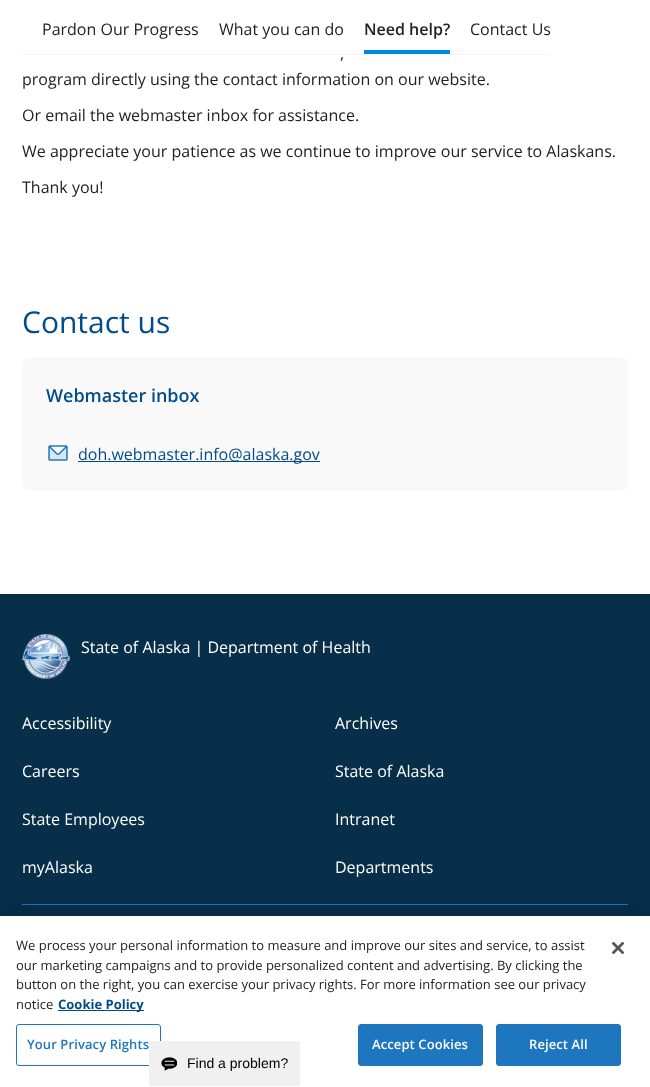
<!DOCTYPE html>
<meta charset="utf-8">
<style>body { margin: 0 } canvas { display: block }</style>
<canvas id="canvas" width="650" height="1087"></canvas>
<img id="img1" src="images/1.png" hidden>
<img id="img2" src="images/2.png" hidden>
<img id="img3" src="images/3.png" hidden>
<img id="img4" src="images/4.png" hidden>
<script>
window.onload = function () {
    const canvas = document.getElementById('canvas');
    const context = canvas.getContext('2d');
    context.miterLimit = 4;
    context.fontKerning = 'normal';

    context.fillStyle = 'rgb(255, 255, 255)';
    context.fillRect(0, 0, 650, 1087);
    context.fillStyle = 'rgb(245, 245, 245)';
    context.fillRect(22, 54, 529, 1);
    context.fillStyle = 'rgb(0, 137, 227)';
    context.fillRect(364, 50, 86, 4);
    context.fillStyle = 'rgb(249, 249, 249)';
    context.beginPath();
    context.roundRect(22, 357, 606, 134, 8);
    context.fill();
    context.drawImage(document.getElementById('img1'), 48, 445, 20, 16);
    context.fillStyle = 'rgb(1, 76, 139)';
    context.fillRect(78, 461, 242, 1);
    context.fillStyle = 'rgb(7, 47, 73)';
    context.fillRect(0, 594, 650, 322);
    context.drawImage(document.getElementById('img2'), 22, 634, 48, 45);
    context.fillStyle = 'rgb(30, 118, 191)';
    context.fillRect(22, 904, 606, 1);
    context.fillStyle = 'rgba(0, 0, 0, 0.2)';
    context.filter = 'blur(9px)';
    context.beginPath();
    context.rect(0, 916, 650, 171);
    context.fill();
    context.filter = 'none';
    context.fillStyle = 'rgb(255, 255, 255)';
    context.fillRect(0, 916, 650, 171);
    context.fillStyle = 'rgb(1, 76, 139)';
    context.fillRect(58, 1010, 86, 1);
    context.beginPath();
    context.roundRect(16.5, 1024.5, 144, 41, 2.5);
    context.strokeStyle = 'rgb(30, 118, 191)';
    context.stroke();
    context.fillStyle = 'rgb(30, 118, 191)';
    context.beginPath();
    context.roundRect(358.5, 1024.5, 124, 41, 2.5);
    context.fill();
    context.stroke();
    context.beginPath();
    context.roundRect(496.5, 1024.5, 124, 41, 2.5);
    context.fill();
    context.stroke();
    context.drawImage(document.getElementById('img3'), 612, 942, 12, 12);
    context.font = '16px Open Sans';
    context.fillStyle = 'rgb(34, 34, 34)';
    context.fillText('Pardon Our Progress', 42, 35);
    context.fillText('What you can do', 219, 35);
    context.font = '600 16px Open Sans';
    context.fillText('Need help?', 364, 35);
    context.font = '16px Open Sans';
    context.fillText('Contact Us', 470, 35);
    context.fillText(',', 340, 59);
    context.fillText('program directly using the contact information on our website.', 22, 85);
    context.fillText('Or email the webmaster inbox for assistance.', 22, 121);
    context.fillText('We appreciate your patience as we continue to improve our service to Alaskans.', 22, 157);
    context.fillText('Thank you!', 22, 193);
    context.font = '30px Open Sans';
    context.fillStyle = 'rgb(1, 76, 139)';
    context.fillText('Contact us', 22, 333);
    context.font = '600 18px Open Sans';
    context.fillText('Webmaster inbox', 46, 402);
    context.font = '16px Open Sans';
    context.fillText('doh.webmaster.info@alaska.gov', 78, 460);
    context.fillStyle = 'rgb(255, 255, 255)';
    context.fillText('State of Alaska | Department of Health', 81, 653);
    context.fillText('Accessibility', 22, 729);
    context.fillText('Archives', 335, 729);
    context.fillText('Careers', 22, 777);
    context.fillText('State of Alaska', 335, 777);
    context.fillText('State Employees', 22, 825);
    context.fillText('Intranet', 335, 825);
    context.fillText('myAlaska', 22, 873);
    context.fillText('Departments', 335, 873);
    context.font = '13px Open Sans';
    context.fillStyle = 'rgb(34, 34, 34)';
    context.fillText('We process your personal information to measure and improve our sites and service, to assist', 16, 950);
    context.fillText('our marketing campaigns and to provide personalized content and advertising. By clicking the', 16, 970);
    context.fillText('button on the right, you can exercise your privacy rights. For more information see our privacy', 16, 989);
    context.fillText('notice', 16, 1009);
    context.font = 'bold 13px Open Sans';
    context.fillStyle = 'rgb(1, 76, 139)';
    context.fillText('Cookie Policy', 58, 1009);
    context.letterSpacing = '0.1px';
    context.font = '600 13px Open Sans';
    context.fillStyle = 'rgb(30, 118, 191)';
    context.fillText('Your Privacy Rights', 27, 1049);
    context.fillStyle = 'rgb(255, 255, 255)';
    context.fillText('Accept Cookies', 372, 1049);
    context.fillText('Reject All', 529, 1049);
    context.fillStyle = 'rgb(240, 240, 240)';
    context.fillRect(149, 1041, 151, 45);
    context.drawImage(document.getElementById('img4'), 161, 1057, 16, 14);
    context.letterSpacing = '0px';
    context.font = '14px Liberation Sans';
    context.fillStyle = 'rgb(0, 0, 0)';
    context.fillText('Find a problem?', 187, 1068);
};
</script>
